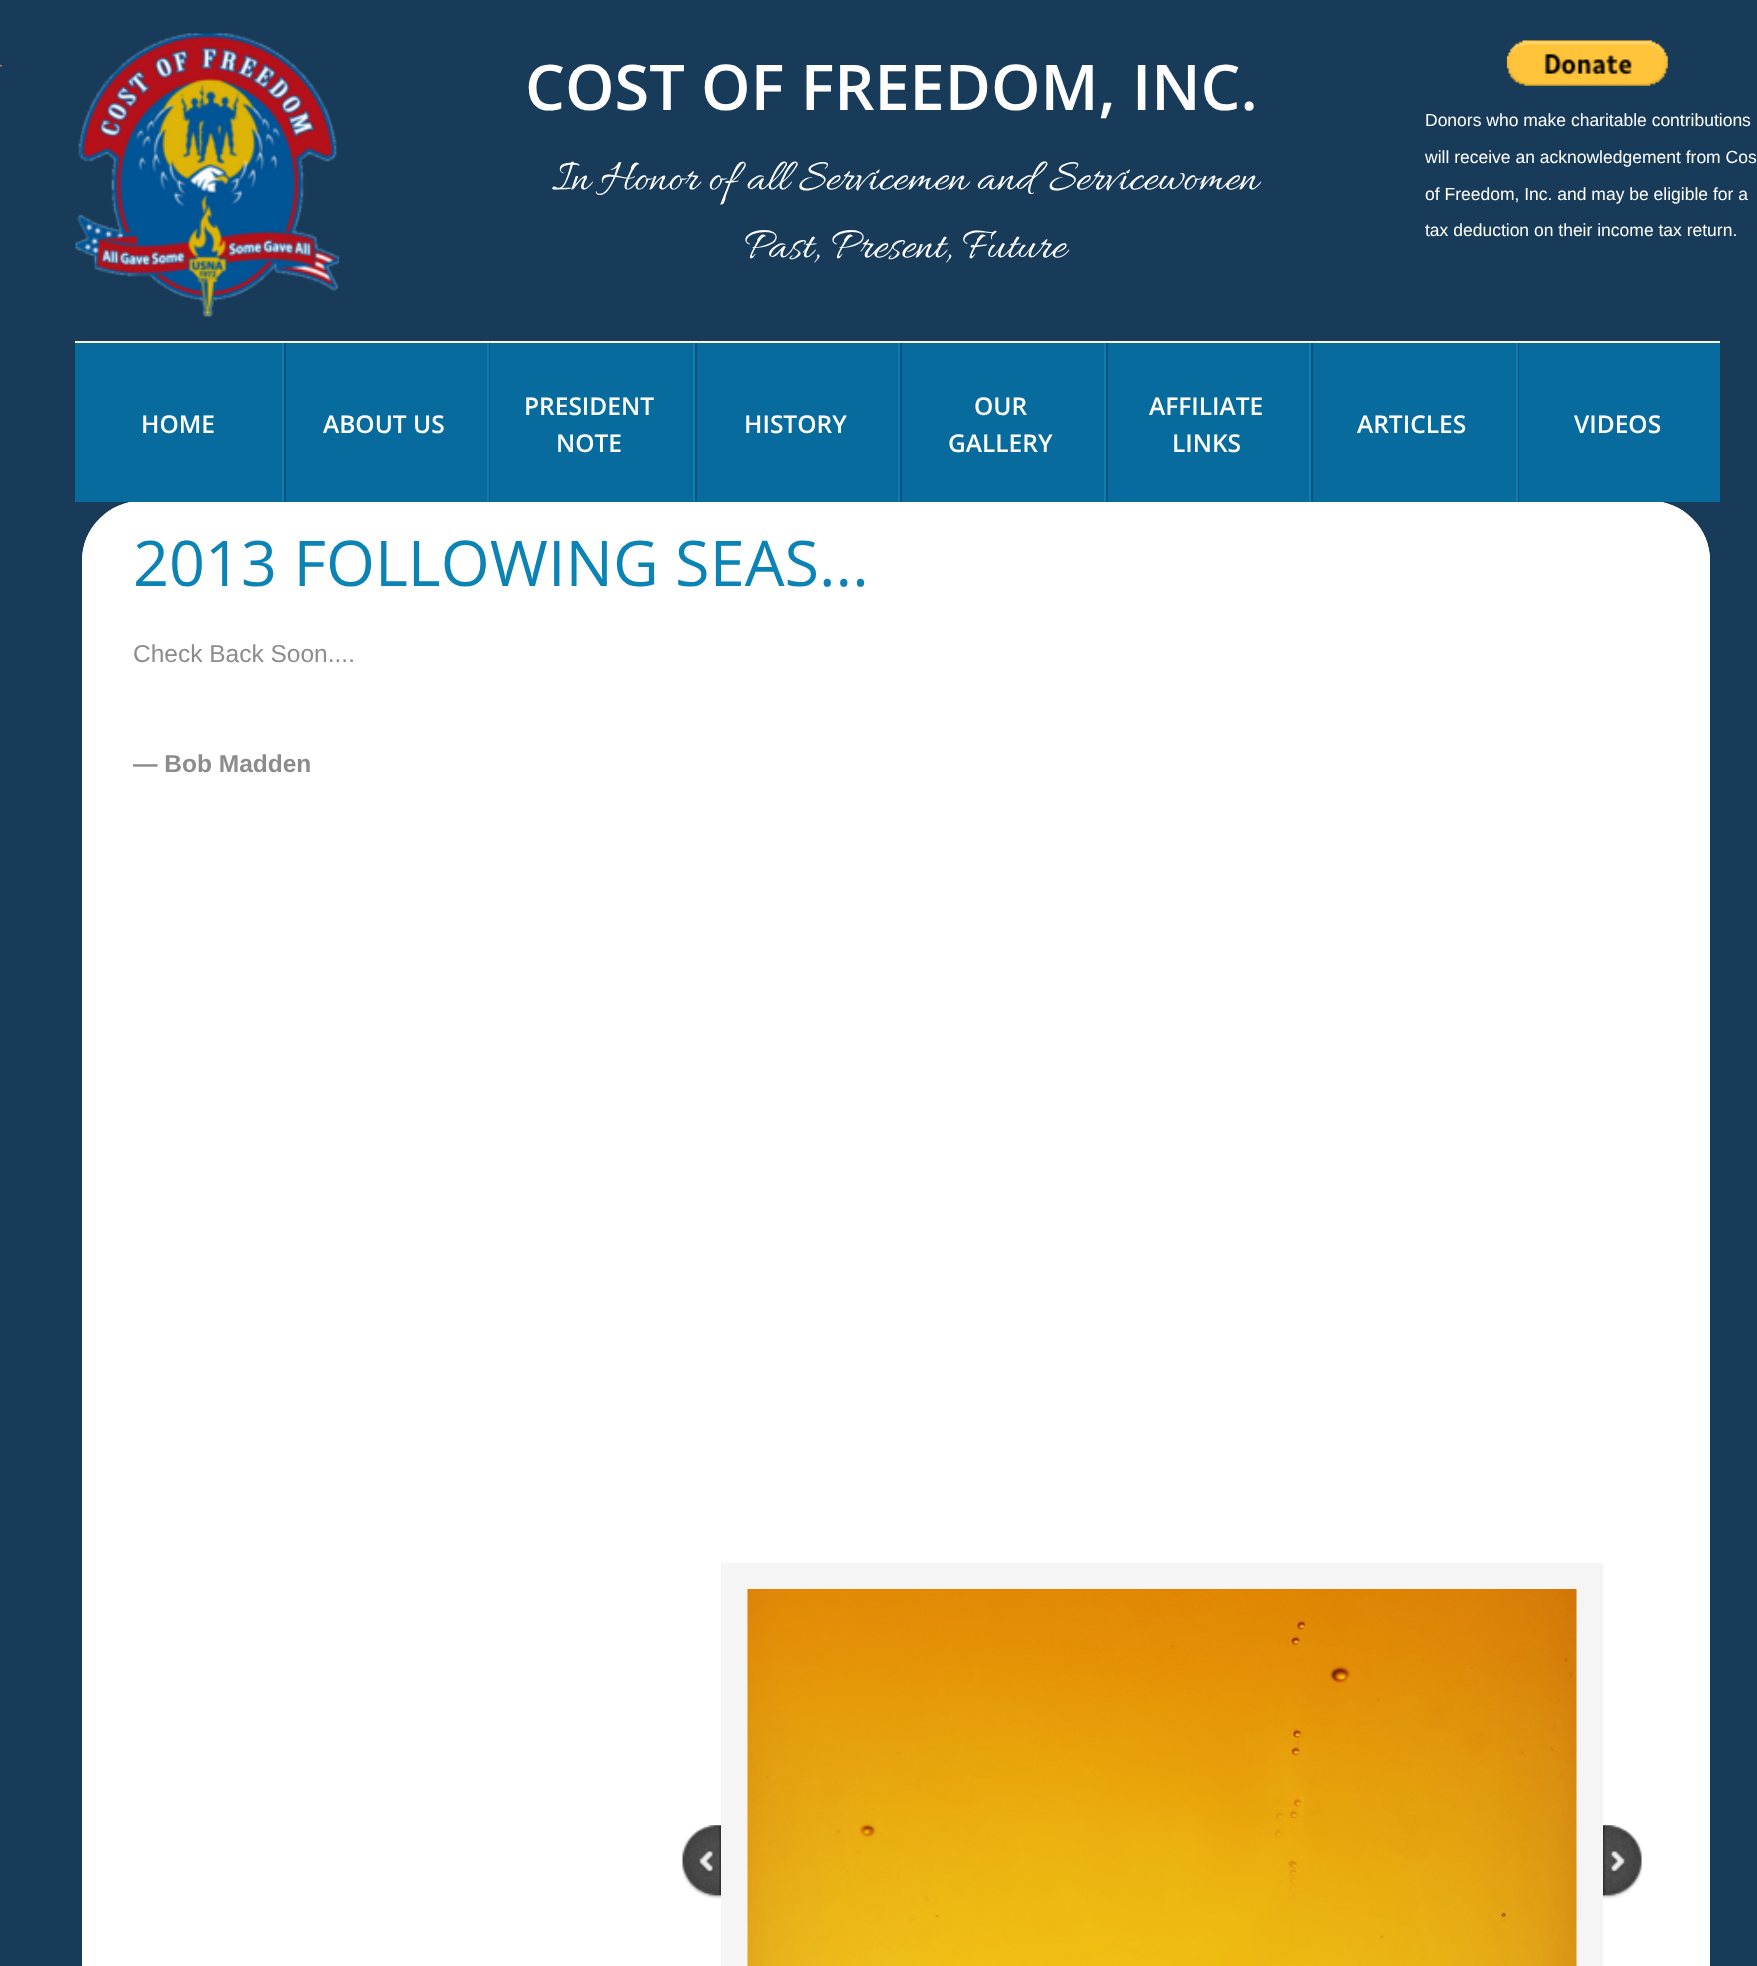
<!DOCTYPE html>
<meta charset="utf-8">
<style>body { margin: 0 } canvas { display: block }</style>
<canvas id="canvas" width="1757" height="1966"></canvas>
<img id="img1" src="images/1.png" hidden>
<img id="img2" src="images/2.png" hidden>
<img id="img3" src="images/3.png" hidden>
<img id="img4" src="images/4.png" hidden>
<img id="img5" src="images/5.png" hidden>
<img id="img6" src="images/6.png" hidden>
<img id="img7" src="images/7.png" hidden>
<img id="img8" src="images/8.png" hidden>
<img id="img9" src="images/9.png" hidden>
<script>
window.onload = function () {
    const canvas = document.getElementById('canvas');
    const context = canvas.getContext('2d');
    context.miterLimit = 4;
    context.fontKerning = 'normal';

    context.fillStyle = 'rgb(23, 59, 89)';
    context.fillRect(0, 0, 1757, 1966);
    context.drawImage(document.getElementById('img1'), 0, 64, 2, 3);
    context.drawImage(document.getElementById('img2'), 75, 33, 265, 284);
    context.drawImage(document.getElementById('img3'), 1506, 40, 162, 46);
    context.drawImage(document.getElementById('img4'), 0, 64, 2, 3);
    context.drawImage(document.getElementById('img5'), 0, 64, 2, 3);
    context.drawImage(document.getElementById('img6'), 0, 64, 2, 3);
    context.fillStyle = 'rgb(255, 255, 255)';
    context.beginPath();
    context.moveTo(142, 501);
    context.lineTo(1650, 501);
    context.bezierCurveTo(1683, 501, 1710, 528, 1710, 561);
    context.lineTo(1710, 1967);
    context.lineTo(82, 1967);
    context.lineTo(82, 561);
    context.bezierCurveTo(82, 528, 109, 501, 142, 501);
    context.closePath();
    context.fill();
    context.beginPath();
    context.roundRect(83, 502, 1626, 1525, 59);
    context.strokeStyle = 'rgb(255, 255, 255)';
    context.lineWidth = 2;
    context.stroke();
    context.fillStyle = 'rgb(7, 108, 157)';
    context.fillRect(75, 343, 1645, 159);
    context.fillStyle = 'rgb(251, 242, 208)';
    context.fillRect(75, 341, 1645, 2);
    context.fillStyle = 'rgb(3, 79, 127)';
    context.fillRect(284, 343, 2, 159);
    context.fillStyle = 'rgb(10, 126, 174)';
    context.fillRect(282, 343, 2, 159);
    context.fillStyle = 'rgb(3, 79, 127)';
    context.fillRect(489, 343, 1, 159);
    context.fillStyle = 'rgb(10, 126, 174)';
    context.fillRect(487, 343, 2, 159);
    context.fillStyle = 'rgb(3, 79, 127)';
    context.fillRect(695, 343, 2, 159);
    context.fillStyle = 'rgb(10, 126, 174)';
    context.fillRect(693, 343, 2, 159);
    context.fillStyle = 'rgb(3, 79, 127)';
    context.fillRect(900, 343, 2, 159);
    context.fillStyle = 'rgb(10, 126, 174)';
    context.fillRect(898, 343, 2, 159);
    context.fillStyle = 'rgb(3, 79, 127)';
    context.fillRect(1106, 343, 2, 159);
    context.fillStyle = 'rgb(10, 126, 174)';
    context.fillRect(1104, 343, 2, 159);
    context.fillStyle = 'rgb(3, 79, 127)';
    context.fillRect(1311, 343, 2, 159);
    context.fillStyle = 'rgb(10, 126, 174)';
    context.fillRect(1309, 343, 2, 159);
    context.fillStyle = 'rgb(3, 79, 127)';
    context.fillRect(1518, 343, 1, 159);
    context.fillStyle = 'rgb(10, 126, 174)';
    context.fillRect(1516, 343, 2, 159);
    context.drawImage(document.getElementById('img7'), 682, 1825, 39, 74);
    context.strokeStyle = 'rgb(245, 245, 245)';
    context.lineWidth = 26;
    context.strokeRect(734, 1576, 856, 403);
    context.drawImage(document.getElementById('img8'), 747, 1589, 830, 377);
    context.drawImage(document.getElementById('img9'), 1603, 1825, 39, 74);
    context.font = '600 63px Open Sans';
    context.fillStyle = 'rgb(255, 255, 255)';
    context.fillText('COST OF FREEDOM, INC.', 525, 110);
    context.font = '45.5px Allura';
    context.fillText('In Honor of all Servicemen and Servicewomen', 552, 189);
    context.fillText('Past, Present, Future', 744, 257);
    context.font = '17.5px Liberation Sans';
    context.fillText('Donors who make charitable contributions', 1425, 126);
    context.fillText('will receive an acknowledgement from Cos', 1425, 163);
    context.fillText('of Freedom, Inc. and may be eligible for a', 1425, 200);
    context.fillText('tax deduction on their income tax return.', 1425, 236);
    context.font = '600 24.5px Open Sans';
    context.fillText('HOME', 141, 433);
    context.fillText('ABOUT US', 323, 433);
    context.fillText('PRESIDENT', 524, 415);
    context.fillText('NOTE', 556, 452);
    context.fillText('HISTORY', 744, 433);
    context.fillText('OUR', 974, 415);
    context.fillText('GALLERY', 948, 452);
    context.fillText('AFFILIATE', 1149, 415);
    context.fillText('LINKS', 1172, 452);
    context.fillText('ARTICLES', 1357, 433);
    context.fillText('VIDEOS', 1574, 433);
    context.font = '63px Open Sans';
    context.fillStyle = 'rgb(11, 132, 181)';
    context.fillText('2013 FOLLOWING SEAS...', 133, 586);
    context.font = '24.5px Liberation Sans';
    context.fillStyle = 'rgb(140, 140, 140)';
    context.fillText('Check Back Soon....', 133, 662);
    context.font = 'bold 24.5px Liberation Sans';
    context.fillText('— Bob Madden', 133, 772);
};
</script>
